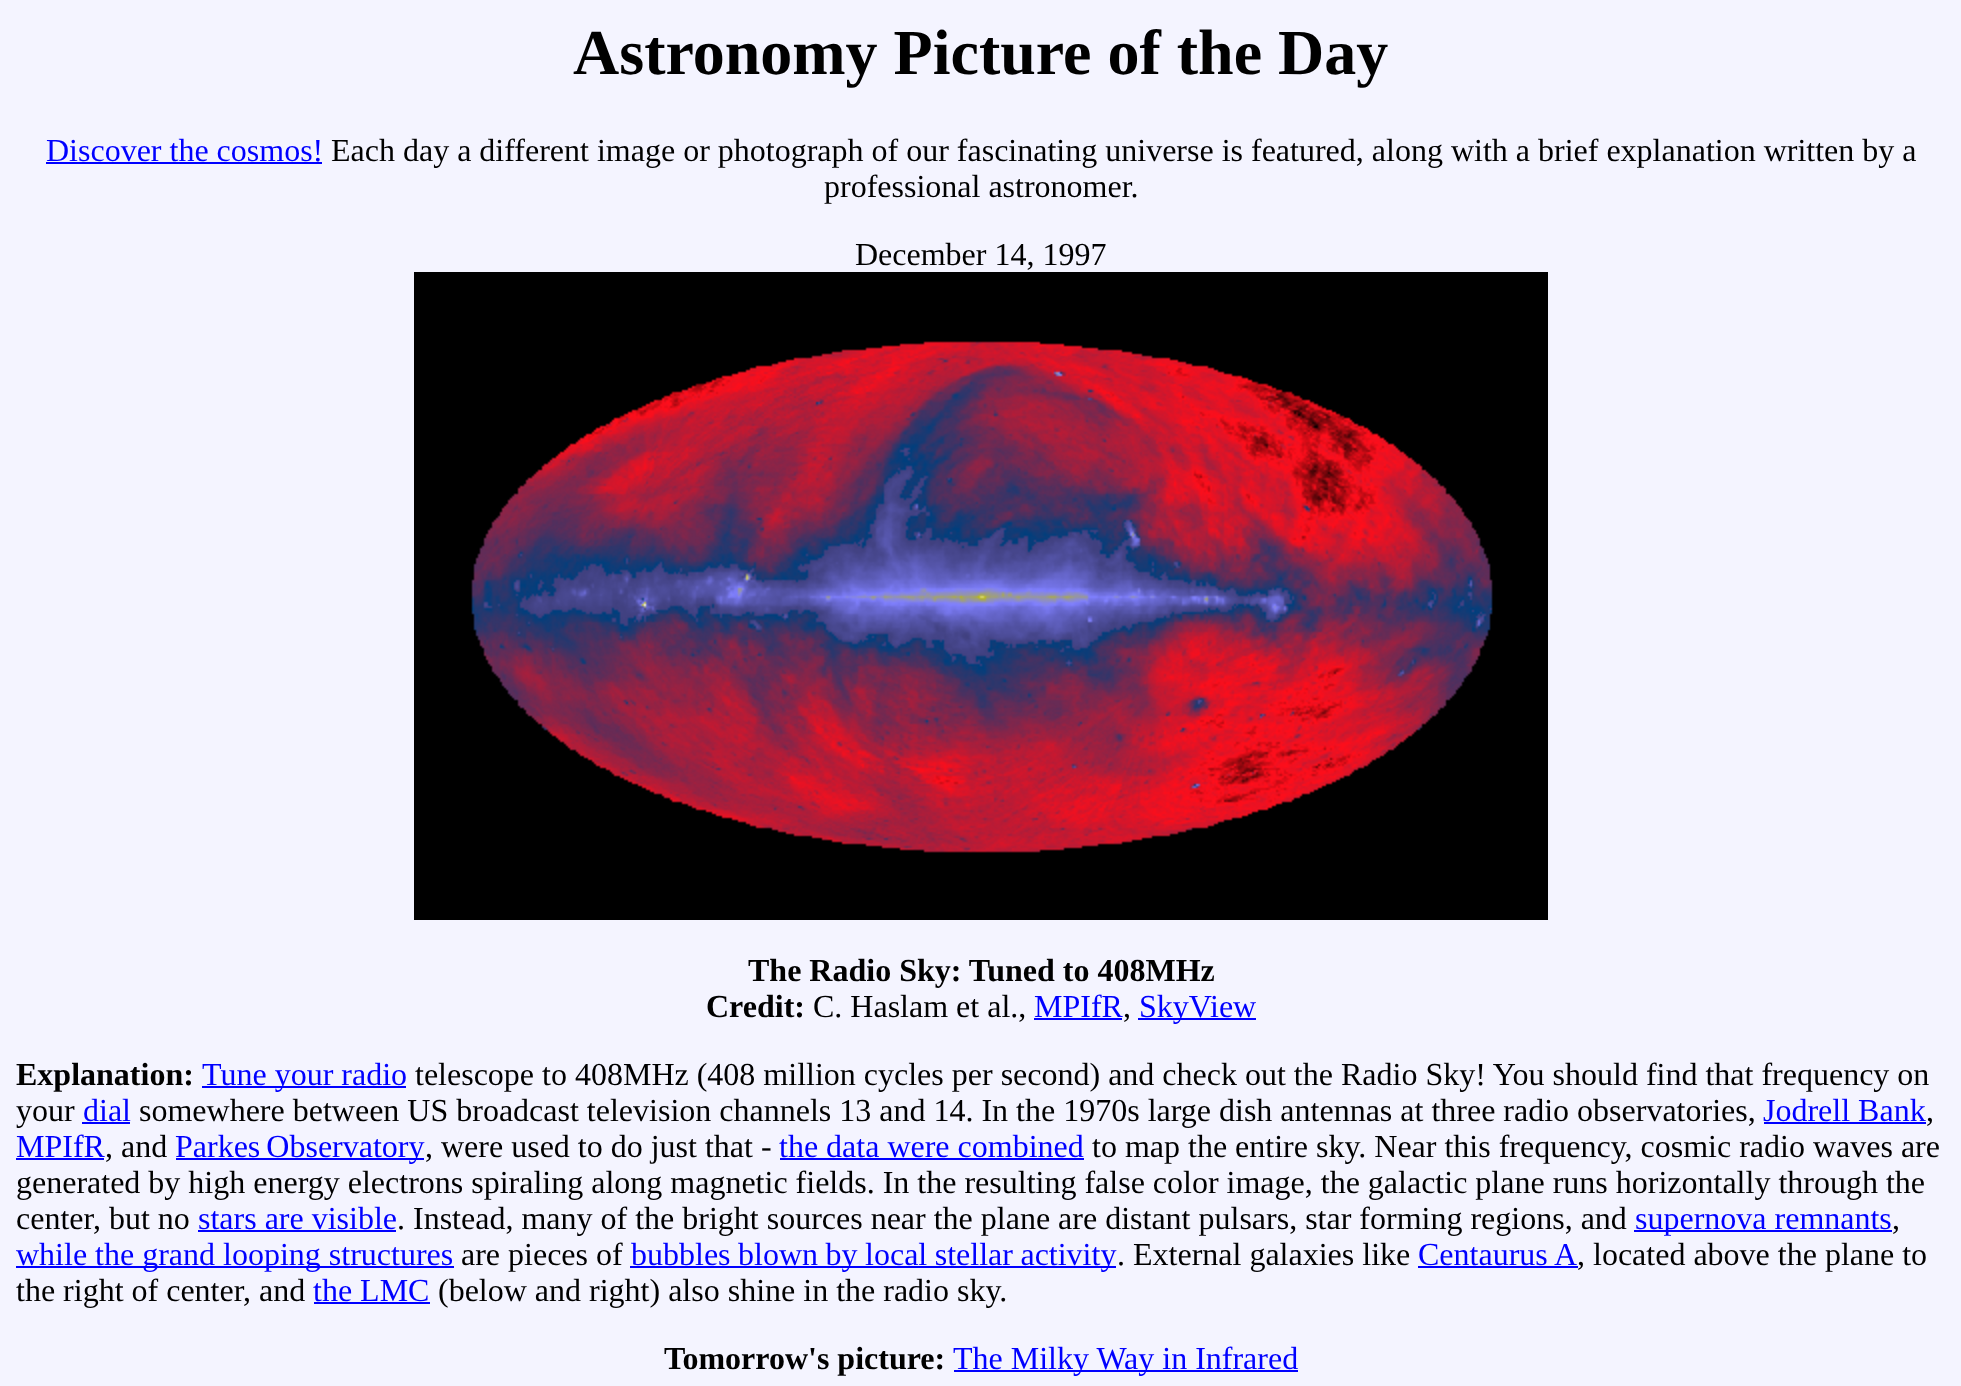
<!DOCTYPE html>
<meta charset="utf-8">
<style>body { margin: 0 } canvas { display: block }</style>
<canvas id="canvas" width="1961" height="1386"></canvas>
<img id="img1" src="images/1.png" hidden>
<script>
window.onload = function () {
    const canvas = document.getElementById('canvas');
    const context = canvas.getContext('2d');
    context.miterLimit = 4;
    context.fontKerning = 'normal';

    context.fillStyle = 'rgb(244, 244, 255)';
    context.fillRect(0, 0, 1961, 1386);
    context.fillStyle = 'rgb(0, 0, 255)';
    context.fillRect(46, 162, 276, 2);
    context.drawImage(document.getElementById('img1'), 414, 272, 1134, 648);
    context.fillRect(1034, 1018, 88, 2);
    context.fillRect(1138, 1018, 118, 2);
    context.fillRect(202, 1086, 204, 2);
    context.fillRect(82, 1122, 48, 2);
    context.fillRect(1764, 1122, 162, 2);
    context.fillRect(16, 1158, 88, 2);
    context.fillRect(176, 1158, 248, 2);
    context.fillRect(780, 1158, 304, 2);
    context.fillRect(198, 1230, 198, 2);
    context.fillRect(1634, 1230, 258, 2);
    context.fillRect(16, 1266, 438, 2);
    context.fillRect(630, 1266, 486, 2);
    context.fillRect(1418, 1266, 160, 2);
    context.fillRect(314, 1302, 116, 2);
    context.fillRect(954, 1370, 344, 2);
    context.font = 'bold 64px Liberation Serif';
    context.fillStyle = 'rgb(0, 0, 0)';
    context.fillText('Astronomy Picture of the Day', 573, 74);
    context.font = '32px Liberation Serif';
    context.fillStyle = 'rgb(0, 0, 255)';
    context.fillText('Discover the cosmos!', 46, 161);
    context.fillStyle = 'rgb(0, 0, 0)';
    context.fillText('Each day a different image or photograph of our fascinating universe is featured, along with a brief explanation written by a', 331, 161);
    context.fillText('professional astronomer.', 824, 197);
    context.fillText('December 14, 1997', 855, 265);
    context.font = 'bold 32px Liberation Serif';
    context.fillText('The Radio Sky: Tuned to 408MHz', 748, 981);
    context.fillText('Credit:', 706, 1017);
    context.font = '32px Liberation Serif';
    context.fillText('C. Haslam et al.,', 813, 1017);
    context.fillStyle = 'rgb(0, 0, 255)';
    context.fillText('MPIfR', 1034, 1017);
    context.fillStyle = 'rgb(0, 0, 0)';
    context.fillText(',', 1123, 1017);
    context.fillStyle = 'rgb(0, 0, 255)';
    context.fillText('SkyView', 1139, 1017);
    context.font = 'bold 32px Liberation Serif';
    context.fillStyle = 'rgb(0, 0, 0)';
    context.fillText('Explanation:', 16, 1085);
    context.font = '32px Liberation Serif';
    context.fillStyle = 'rgb(0, 0, 255)';
    context.fillText('Tune your radio', 202, 1085);
    context.fillStyle = 'rgb(0, 0, 0)';
    context.fillText('telescope to 408MHz (408 million cycles per second) and check out the Radio Sky! You should find that frequency on', 415, 1085);
    context.fillText('your', 16, 1121);
    context.fillStyle = 'rgb(0, 0, 255)';
    context.fillText('dial', 83, 1121);
    context.fillStyle = 'rgb(0, 0, 0)';
    context.fillText('somewhere between US broadcast television channels 13 and 14. In the 1970s large dish antennas at three radio observatories,', 139, 1121);
    context.fillStyle = 'rgb(0, 0, 255)';
    context.fillText('Jodrell Bank', 1763, 1121);
    context.fillStyle = 'rgb(0, 0, 0)';
    context.fillText(',', 1926, 1121);
    context.fillStyle = 'rgb(0, 0, 255)';
    context.fillText('MPIfR', 16, 1157);
    context.fillStyle = 'rgb(0, 0, 0)';
    context.fillText(', and', 105, 1157);
    context.wordSpacing = '-2px';
    context.fillStyle = 'rgb(0, 0, 255)';
    context.fillText('Parkes Observatory', 175, 1157);
    context.wordSpacing = '0px';
    context.fillStyle = 'rgb(0, 0, 0)';
    context.fillText(', were used to do just that -', 425, 1157);
    context.fillStyle = 'rgb(0, 0, 255)';
    context.fillText('the data were combined', 779, 1157);
    context.fillStyle = 'rgb(0, 0, 0)';
    context.fillText('to map the entire sky. Near this frequency, cosmic radio waves are', 1092, 1157);
    context.fillText('generated by high energy electrons spiraling along magnetic fields. In the resulting false color image, the galactic plane runs horizontally through the', 16, 1193);
    context.fillText('center, but no', 16, 1229);
    context.fillStyle = 'rgb(0, 0, 255)';
    context.fillText('stars are visible', 198, 1229);
    context.fillStyle = 'rgb(0, 0, 0)';
    context.fillText('. Instead, many of the bright sources near the plane are distant pulsars, star forming regions, and', 397, 1229);
    context.fillStyle = 'rgb(0, 0, 255)';
    context.fillText('supernova remnants', 1635, 1229);
    context.fillStyle = 'rgb(0, 0, 0)';
    context.fillText(',', 1892, 1229);
    context.fillStyle = 'rgb(0, 0, 255)';
    context.fillText('while the grand looping structures', 16, 1265);
    context.fillStyle = 'rgb(0, 0, 0)';
    context.fillText('are pieces of', 461, 1265);
    context.wordSpacing = '-0.5px';
    context.fillStyle = 'rgb(0, 0, 255)';
    context.fillText('bubbles blown by local stellar activity', 631, 1265);
    context.wordSpacing = '0px';
    context.fillStyle = 'rgb(0, 0, 0)';
    context.fillText('. External galaxies like', 1117, 1265);
    context.fillStyle = 'rgb(0, 0, 255)';
    context.fillText('Centaurus A', 1418, 1265);
    context.fillStyle = 'rgb(0, 0, 0)';
    context.fillText(', located above the plane to', 1577, 1265);
    context.fillText('the right of center, and', 16, 1301);
    context.fillStyle = 'rgb(0, 0, 255)';
    context.fillText('the LMC', 313, 1301);
    context.fillStyle = 'rgb(0, 0, 0)';
    context.fillText('(below and right) also shine in the radio sky.', 438, 1301);
    context.font = 'bold 32px Liberation Serif';
    context.fillText('Tomorrow\'s picture:', 664, 1369);
    context.font = '32px Liberation Serif';
    context.fillStyle = 'rgb(0, 0, 255)';
    context.fillText('The Milky Way in Infrared', 953, 1369);
};
</script>
